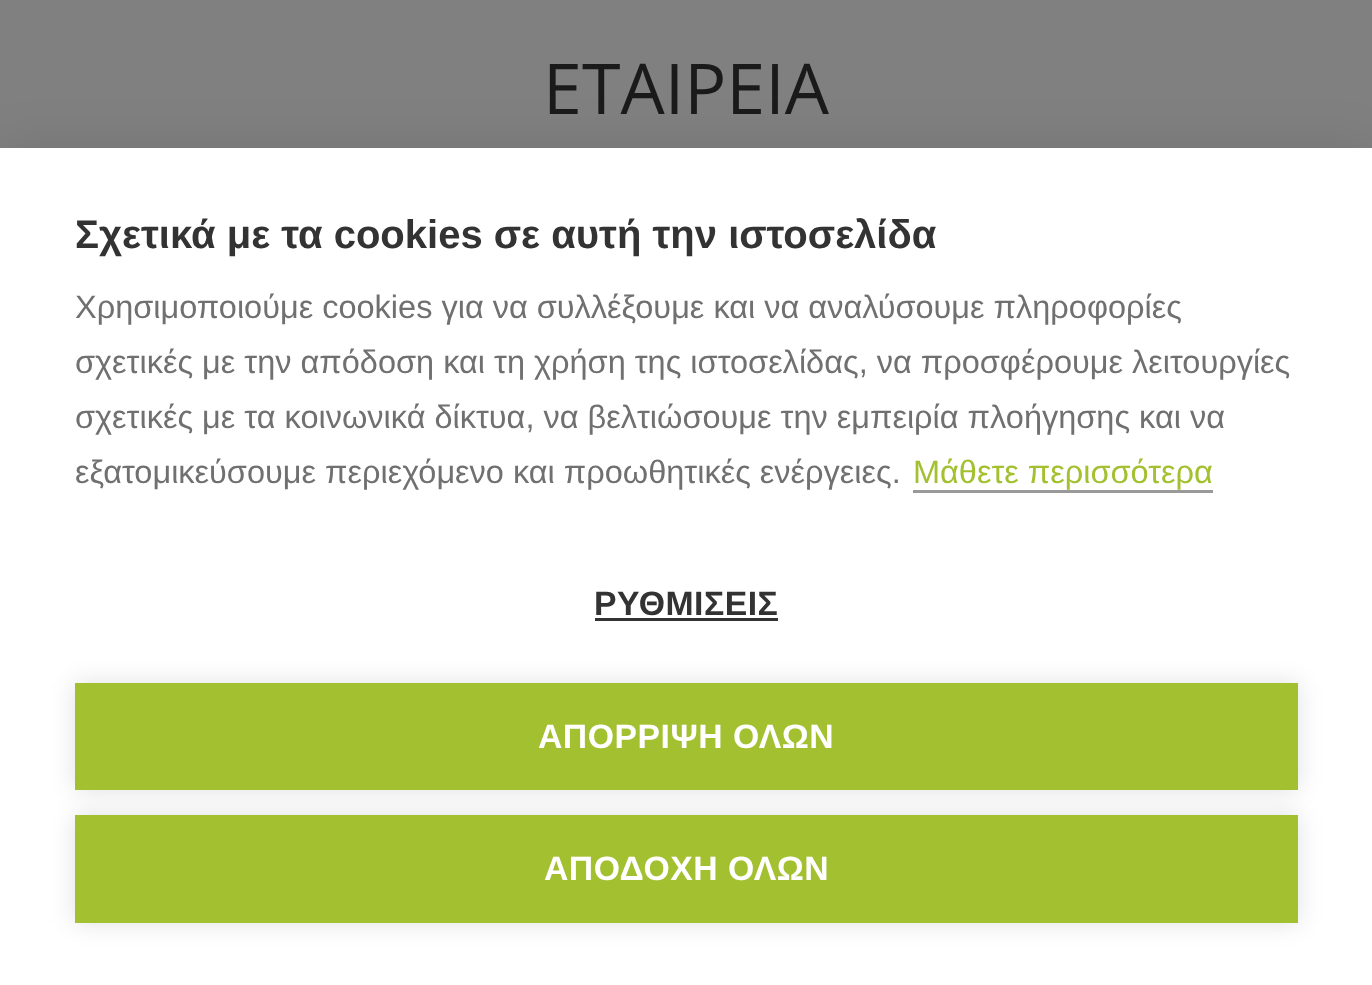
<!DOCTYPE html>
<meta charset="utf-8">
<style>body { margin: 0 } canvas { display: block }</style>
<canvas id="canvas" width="1372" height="985"></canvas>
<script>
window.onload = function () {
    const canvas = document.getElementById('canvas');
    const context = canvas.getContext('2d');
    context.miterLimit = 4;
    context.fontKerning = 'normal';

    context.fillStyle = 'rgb(128, 128, 128)';
    context.fillRect(0, 0, 1372, 985);
    context.fillStyle = 'rgba(0, 0, 0, 0.1)';
    context.filter = 'blur(25px)';
    context.beginPath();
    context.rect(0, 148, 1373, 837);
    context.fill();
    context.filter = 'none';
    context.fillStyle = 'rgb(255, 255, 255)';
    context.fillRect(0, 148, 1372, 837);
    context.fillStyle = 'rgb(153, 153, 153)';
    context.fillRect(913, 490, 300, 3);
    context.fillStyle = 'rgb(51, 51, 51)';
    context.fillRect(595, 618, 183, 3);
    context.fillStyle = 'rgba(0, 0, 0, 0.12)';
    context.filter = 'blur(12.5px)';
    context.beginPath();
    context.rect(75, 683, 1223, 107);
    context.fill();
    context.filter = 'none';
    context.fillStyle = 'rgb(162, 192, 47)';
    context.fillRect(75, 683, 1223, 107);
    context.fillStyle = 'rgba(0, 0, 0, 0.12)';
    context.filter = 'blur(12.5px)';
    context.beginPath();
    context.rect(75, 815, 1223, 108);
    context.fill();
    context.filter = 'none';
    context.fillStyle = 'rgb(162, 192, 47)';
    context.fillRect(75, 815, 1223, 108);
    context.font = '70px Open Sans';
    context.fillStyle = 'rgb(26, 26, 26)';
    context.fillText('ΕΤΑΙΡΕΙΑ', 543, 114);
    context.font = 'bold 40px Liberation Sans';
    context.fillStyle = 'rgb(51, 51, 51)';
    context.fillText('Σχετικά με τα cookies σε αυτή την ιστοσελίδα', 75, 248);
    context.font = '32.5px Liberation Sans';
    context.fillStyle = 'rgb(112, 112, 112)';
    context.fillText('Χρησιμοποιούμε cookies για να συλλέξουμε και να αναλύσουμε πληροφορίες', 75, 318);
    context.fillText('σχετικές με την απόδοση και τη χρήση της ιστοσελίδας, να προσφέρουμε λειτουργίες', 75, 373);
    context.fillText('σχετικές με τα κοινωνικά δίκτυα, να βελτιώσουμε την εμπειρία πλοήγησης και να', 75, 428);
    context.fillText('εξατομικεύσουμε περιεχόμενο και προωθητικές ενέργειες.', 75, 483);
    context.fillStyle = 'rgb(162, 192, 47)';
    context.fillText('Μάθετε περισσότερα', 913, 483);
    context.letterSpacing = '0.5px';
    context.font = 'bold 33.75px Liberation Sans';
    context.fillStyle = 'rgb(51, 51, 51)';
    context.fillText('ΡΥΘΜΙΣΕΙΣ', 594, 615);
    context.fillStyle = 'rgb(255, 255, 255)';
    context.fillText('ΑΠΟΡΡΙΨΗ ΟΛΩΝ', 538, 748);
    context.fillText('ΑΠΟΔΟΧΗ ΟΛΩΝ', 544, 880);
};
</script>
